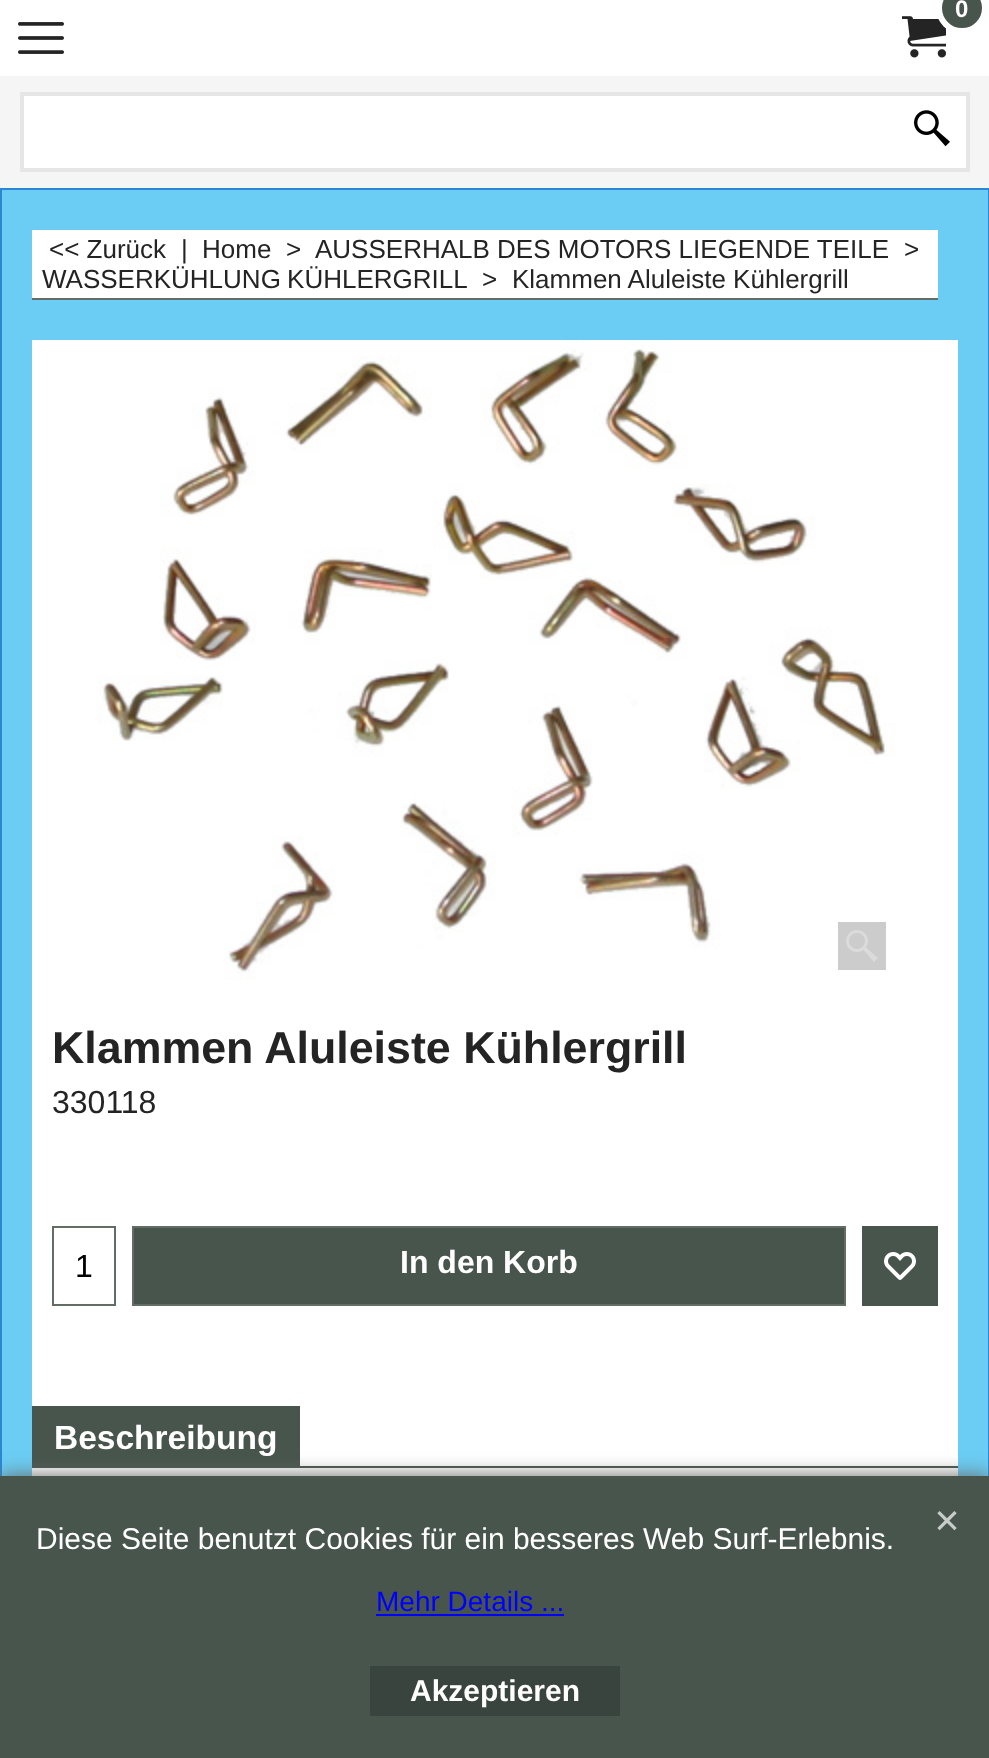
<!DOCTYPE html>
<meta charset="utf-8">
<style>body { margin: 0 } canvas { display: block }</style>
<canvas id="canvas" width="989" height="1758"></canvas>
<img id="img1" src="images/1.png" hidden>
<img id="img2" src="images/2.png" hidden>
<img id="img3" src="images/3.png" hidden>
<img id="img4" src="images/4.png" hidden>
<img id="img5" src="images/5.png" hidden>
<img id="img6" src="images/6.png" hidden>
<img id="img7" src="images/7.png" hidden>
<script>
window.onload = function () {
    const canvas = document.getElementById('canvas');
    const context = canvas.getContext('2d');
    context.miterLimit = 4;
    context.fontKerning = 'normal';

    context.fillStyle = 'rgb(43, 135, 213)';
    context.fillRect(0, 0, 989, 1758);
    context.fillStyle = 'rgb(255, 255, 255)';
    context.fillRect(0, 0, 989, 76);
    context.drawImage(document.getElementById('img1'), 902, 16, 44, 42);
    context.fillStyle = 'rgb(72, 85, 77)';
    context.beginPath();
    context.arc(962, 8, 23, 0, 2 * Math.PI);
    context.fill();
    context.strokeStyle = 'rgb(255, 255, 255)';
    context.lineWidth = 6;
    context.stroke();
    context.drawImage(document.getElementById('img2'), 18, 22, 46, 32);
    context.fillStyle = 'rgb(245, 245, 246)';
    context.fillRect(0, 76, 989, 112);
    context.fillStyle = 'rgb(255, 255, 255)';
    context.beginPath();
    context.rect(22, 94, 946, 76);
    context.fill();
    context.strokeStyle = 'rgb(230, 230, 230)';
    context.lineWidth = 4;
    context.stroke();
    context.drawImage(document.getElementById('img3'), 914, 110, 36, 37);
    context.fillStyle = 'rgb(107, 205, 244)';
    context.fillRect(2, 190, 986, 1286);
    context.fillStyle = 'rgb(255, 255, 255)';
    context.fillRect(32, 230, 906, 68);
    context.fillStyle = 'rgb(98, 109, 102)';
    context.fillRect(32, 298, 906, 2);
    context.fillStyle = 'rgb(255, 255, 255)';
    context.fillRect(32, 340, 926, 1136);
    context.drawImage(document.getElementById('img4'), 96, 340, 800, 640);
    context.fillStyle = 'rgb(204, 204, 204)';
    context.fillRect(838, 922, 48, 48);
    context.drawImage(document.getElementById('img5'), 846, 930, 32, 32);
    context.strokeStyle = 'rgb(98, 109, 102)';
    context.lineWidth = 2;
    context.strokeRect(53, 1227, 62, 78);
    context.fillStyle = 'rgb(72, 85, 77)';
    context.beginPath();
    context.rect(133, 1227, 712, 78);
    context.fill();
    context.stroke();
    context.fillRect(862, 1226, 76, 80);
    context.drawImage(document.getElementById('img6'), 884, 1252, 32, 28);
    context.fillRect(32, 1406, 268, 62);
    context.fillRect(300, 1466, 658, 2);
    context.fillStyle = 'rgb(102, 102, 102)';
    context.filter = 'blur(10px)';
    context.beginPath();
    context.rect(0, 1476, 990, 282);
    context.fill();
    context.filter = 'none';
    context.fillStyle = 'rgb(72, 85, 77)';
    context.fillRect(0, 1476, 989, 282);
    context.drawImage(document.getElementById('img7'), 937, 1511, 20, 20);
    context.fillStyle = 'rgb(0, 0, 255)';
    context.fillRect(376, 1614, 188, 2);
    context.fillStyle = 'rgb(58, 68, 62)';
    context.fillRect(370, 1666, 250, 50);
    context.font = 'bold 24px Liberation Sans';
    context.fillStyle = 'rgb(255, 255, 255)';
    context.fillText('0', 955, 17);
    context.font = '26px Liberation Sans';
    context.fillStyle = 'rgb(36, 36, 36)';
    context.fillText('<< Zurück', 49, 258);
    context.fillText('|', 181, 258);
    context.fillText('Home', 202, 258);
    context.fillText('>', 286, 258);
    context.fillText('AUSSERHALB DES MOTORS LIEGENDE TEILE', 315, 258);
    context.fillText('>', 904, 258);
    context.wordSpacing = '-1px';
    context.fillText('WASSERKÜHLUNG KÜHLERGRILL', 42, 288);
    context.wordSpacing = '0px';
    context.fillText('>', 482, 288);
    context.fillText('Klammen Aluleiste Kühlergrill', 512, 288);
    context.font = 'bold 44.75px Liberation Sans';
    context.fillText('Klammen Aluleiste Kühlergrill', 52, 1063);
    context.font = '32px Liberation Sans';
    context.fillText('330118', 52, 1113);
    context.fillStyle = 'rgb(0, 0, 0)';
    context.fillText('1', 75, 1277);
    context.font = 'bold 32px Liberation Sans';
    context.fillStyle = 'rgb(255, 255, 255)';
    context.fillText('In den Korb', 400, 1273);
    context.font = 'bold 33.5px Liberation Sans';
    context.fillText('Beschreibung', 54, 1449);
    context.font = '30px Liberation Sans';
    context.fillText('Diese Seite benutzt Cookies für ein besseres Web Surf-Erlebnis.', 36, 1549);
    context.font = '28px Liberation Sans';
    context.fillStyle = 'rgb(0, 0, 255)';
    context.fillText('Mehr Details ...', 376, 1611);
    context.font = 'bold 30px Liberation Sans';
    context.fillStyle = 'rgb(255, 255, 255)';
    context.fillText('Akzeptieren', 410, 1701);
};
</script>
